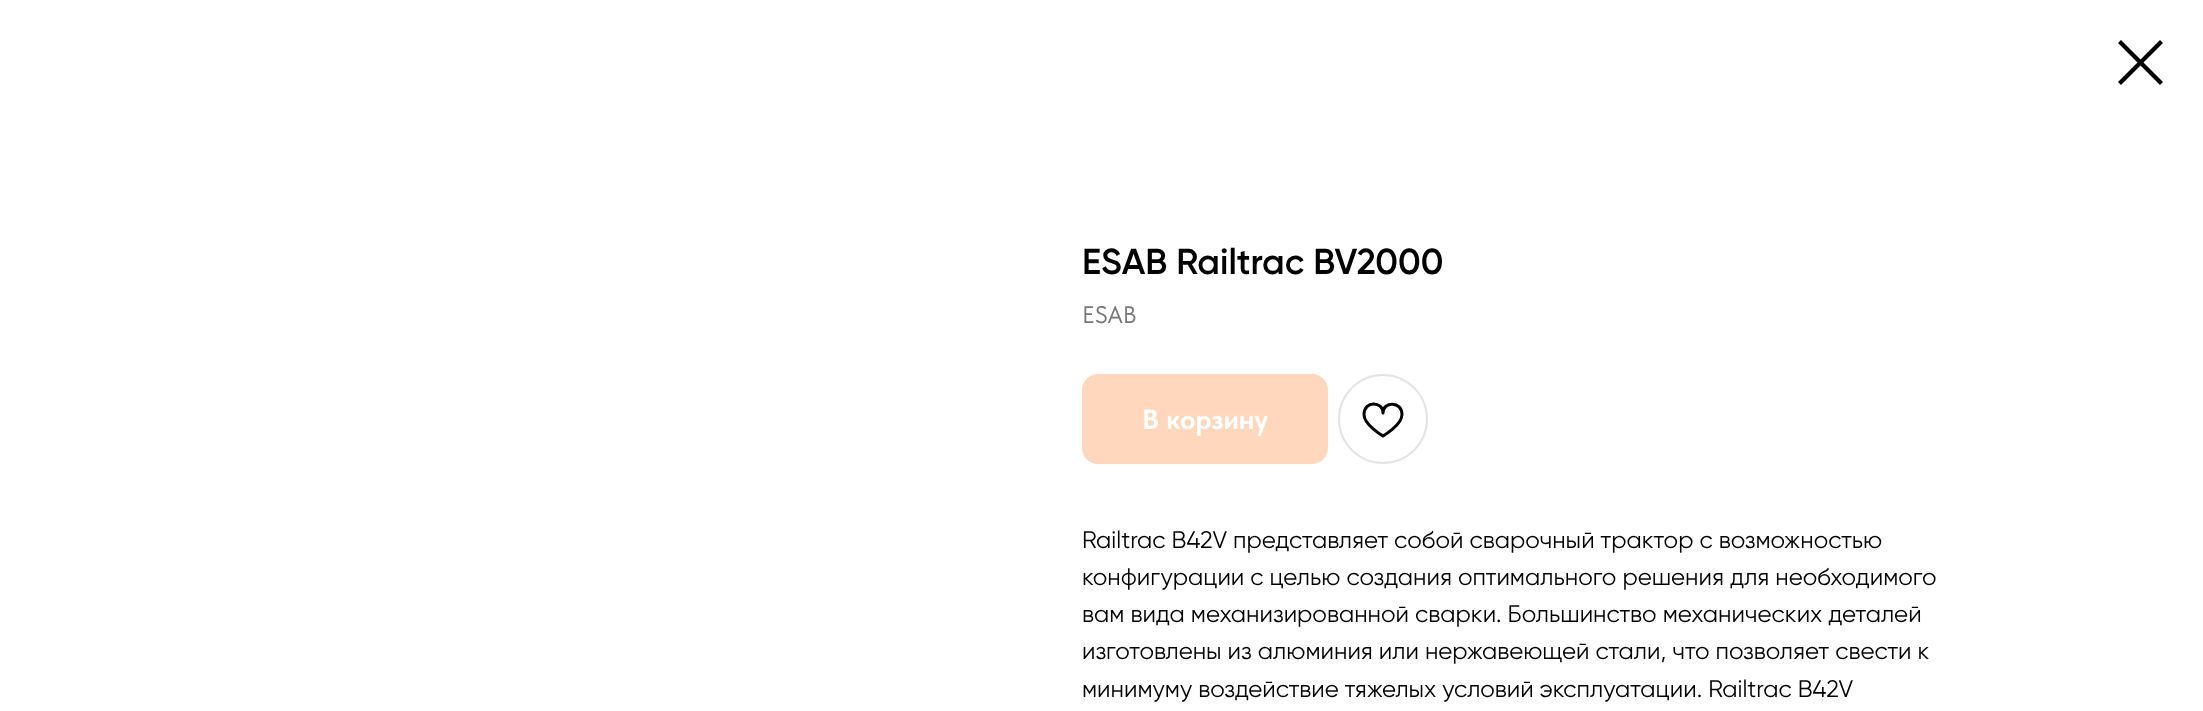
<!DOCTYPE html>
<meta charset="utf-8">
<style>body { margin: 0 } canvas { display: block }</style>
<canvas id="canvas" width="2203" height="711"></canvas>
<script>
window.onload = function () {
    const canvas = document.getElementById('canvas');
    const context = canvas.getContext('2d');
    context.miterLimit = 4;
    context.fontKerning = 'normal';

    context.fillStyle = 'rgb(255, 255, 255)';
    context.fillRect(0, 0, 2203, 711);
    context.fillStyle = 'rgb(0, 0, 0)';
    context.beginPath();
    context.moveTo(2118, 43);
    context.lineTo(2121, 40);
    context.lineTo(2163, 82);
    context.lineTo(2160, 85);
    context.closePath();
    context.fill('evenodd');
    context.beginPath();
    context.moveTo(2160, 40);
    context.lineTo(2163, 43);
    context.lineTo(2121, 85);
    context.lineTo(2118, 82);
    context.closePath();
    context.fill('evenodd');
    context.fillStyle = 'rgb(255, 215, 188)';
    context.beginPath();
    context.roundRect(1082, 374, 246, 90, 16);
    context.fill();
    context.beginPath();
    context.arc(1383, 419, 44, 0, 2 * Math.PI);
    context.strokeStyle = 'rgb(228, 228, 228)';
    context.lineWidth = 2;
    context.stroke();
    context.beginPath();
    context.moveTo(1402, 414.5);
    context.bezierCurveTo(1402, 425, 1383, 436, 1383, 436);
    context.bezierCurveTo(1383, 436, 1364, 425, 1364, 414.5);
    context.bezierCurveTo(1364, 400.5, 1383, 401, 1383, 413);
    context.bezierCurveTo(1383, 401, 1402, 401, 1402, 414.5);
    context.closePath();
    context.strokeStyle = 'rgb(0, 0, 0)';
    context.lineWidth = 3;
    context.lineJoin = 'round';
    context.stroke();
    context.font = '600 36px Gilroy';
    context.fillStyle = 'rgb(0, 0, 0)';
    context.fillText('ESAB Railtrac BV2000', 1082, 274);
    context.font = '24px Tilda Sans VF';
    context.fillStyle = 'rgb(119, 119, 119)';
    context.fillText('ESAB', 1082, 323);
    context.font = 'bold 28px Tilda Sans VF';
    context.fillStyle = 'rgb(255, 255, 255)';
    context.fillText('В корзину', 1142, 429);
    context.font = '24px Gilroy';
    context.fillStyle = 'rgb(0, 0, 0)';
    context.fillText('Railtrac B42V представляет собой сварочный трактор с возможностью', 1082, 548);
    context.fillText('конфигурации с целью создания оптимального решения для необходимого', 1082, 585);
    context.fillText('вам вида механизированной сварки. Большинство механических деталей', 1082, 622);
    context.fillText('изготовлены из алюминия или нержавеющей стали, что позволяет свести к', 1082, 659);
    context.fillText('минимуму воздействие тяжелых условий эксплуатации. Railtrac B42V', 1082, 697);
};
</script>
